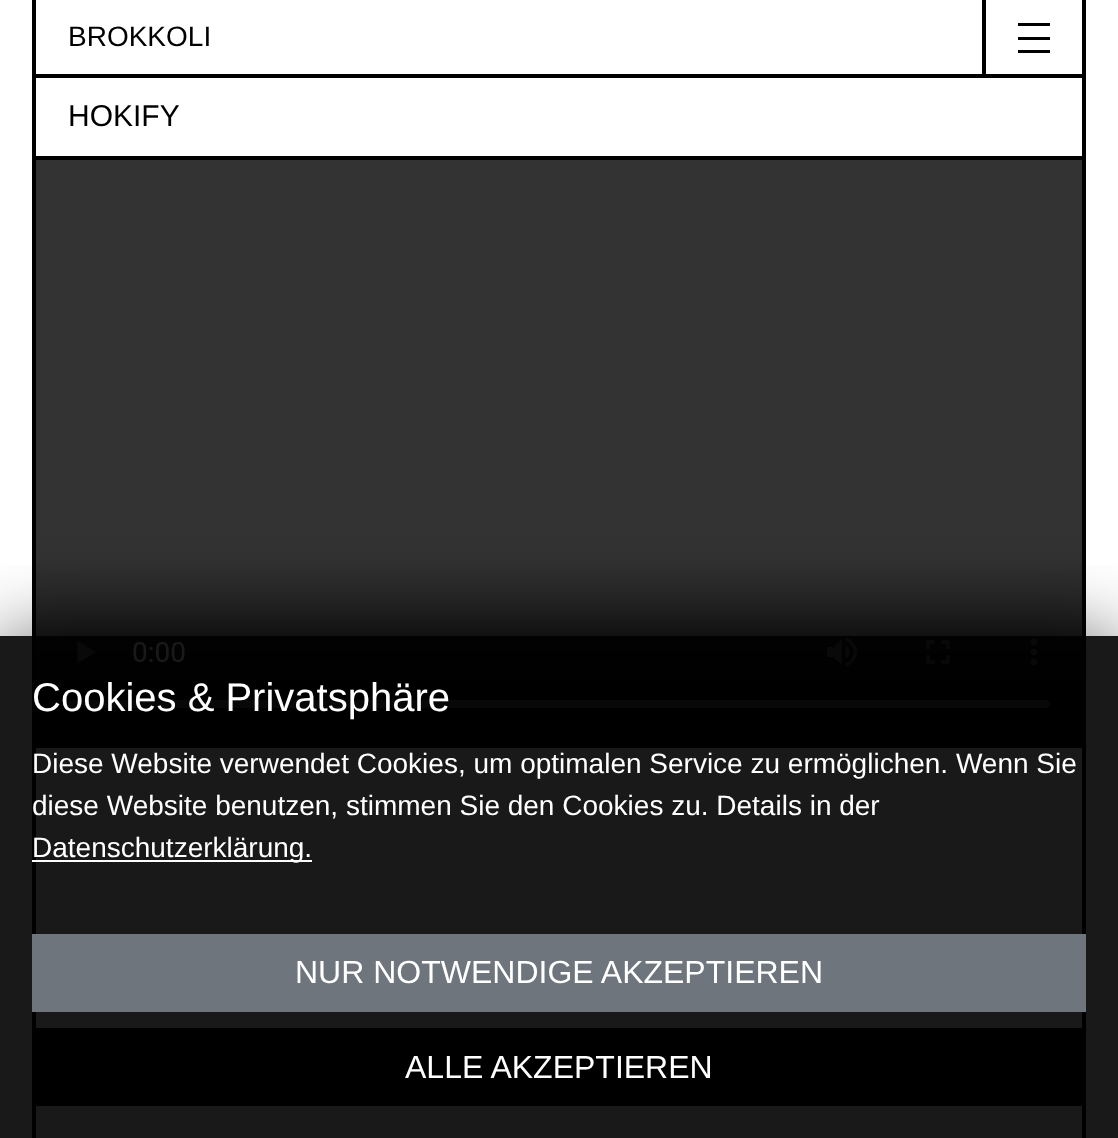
<!DOCTYPE html>
<meta charset="utf-8">
<style>body { margin: 0 } canvas { display: block }</style>
<canvas id="canvas" width="1118" height="1138"></canvas>
<img id="img1" src="images/1.png" hidden>
<script>
window.onload = function () {
    const canvas = document.getElementById('canvas');
    const context = canvas.getContext('2d');
    context.miterLimit = 4;
    context.fontKerning = 'normal';

    context.fillStyle = 'rgb(255, 255, 255)';
    context.fillRect(0, 0, 1118, 1138);
    context.fillStyle = 'rgb(0, 0, 0)';
    context.fillRect(1082, 160, 4, 978);
    context.fillRect(32, 160, 4, 978);
    context.fillRect(1082, 0, 4, 160);
    context.fillRect(32, 74, 1054, 4);
    context.fillRect(32, 0, 4, 78);
    context.fillRect(982, 0, 4, 74);
    context.fillRect(1018, 50, 32, 3);
    context.fillRect(1018, 37, 32, 3);
    context.fillRect(1018, 23, 32, 3);
    context.fillRect(32, 156, 1054, 4);
    context.fillRect(32, 78, 4, 82);
    context.drawImage(document.getElementById('img1'), 36, 160, 1046, 588);
    context.save();
    context.beginPath();
    context.rect(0, 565, 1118, 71);
    context.clip();
    context.fillStyle = 'rgba(0, 0, 0, 0.65)';
    context.filter = 'blur(40px)';
    context.beginPath();
    context.rect(0, 640, 1118, 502);
    context.fill();
    context.filter = 'none';
    context.restore();
    context.fillStyle = 'rgba(0, 0, 0, 0.9)';
    context.fillRect(0, 636, 1118, 502);
    context.fillStyle = 'rgb(255, 255, 255)';
    context.fillRect(32, 860, 280, 2);
    context.fillStyle = 'rgb(110, 117, 124)';
    context.fillRect(32, 934, 1054, 78);
    context.fillStyle = 'rgb(0, 0, 0)';
    context.fillRect(36, 1028, 1046, 78);
    context.font = '28px Liberation Sans';
    context.fillText('BROKKOLI', 68, 46);
    context.font = '30px Liberation Sans';
    context.fillText('HOKIFY', 68, 126);
    context.font = '40px Liberation Sans';
    context.fillStyle = 'rgb(255, 255, 255)';
    context.fillText('Cookies & Privatsphäre', 32, 711);
    context.font = '28px Liberation Sans';
    context.fillText('Diese Website verwendet Cookies, um optimalen Service zu ermöglichen. Wenn Sie', 32, 773);
    context.fillText('diese Website benutzen, stimmen Sie den Cookies zu. Details in der', 32, 815);
    context.fillText('Datenschutzerklärung.', 32, 857);
    context.font = '32px Liberation Sans';
    context.fillText('NUR NOTWENDIGE AKZEPTIEREN', 295, 983);
    context.fillText('ALLE AKZEPTIEREN', 405, 1078);
};
</script>
